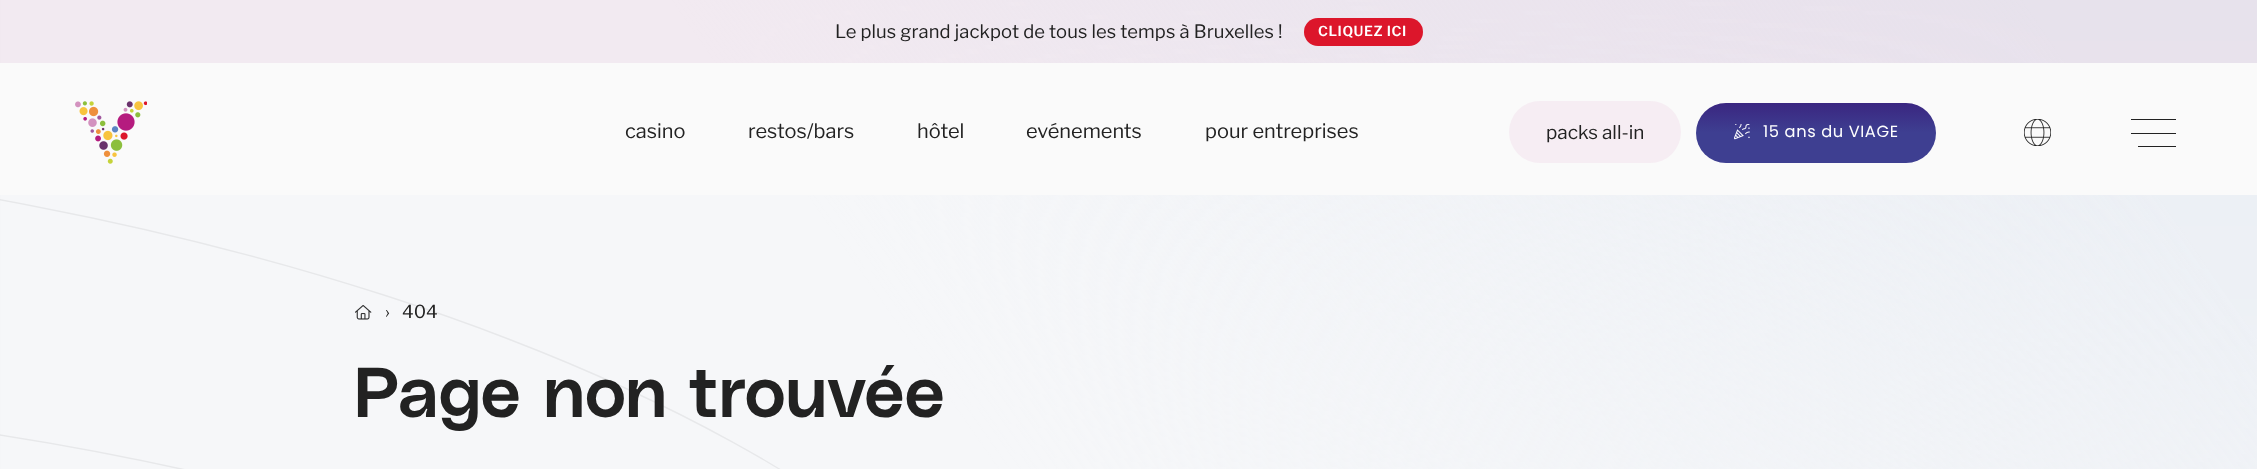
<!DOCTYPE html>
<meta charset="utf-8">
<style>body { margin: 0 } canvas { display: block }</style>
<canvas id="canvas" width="2257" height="469"></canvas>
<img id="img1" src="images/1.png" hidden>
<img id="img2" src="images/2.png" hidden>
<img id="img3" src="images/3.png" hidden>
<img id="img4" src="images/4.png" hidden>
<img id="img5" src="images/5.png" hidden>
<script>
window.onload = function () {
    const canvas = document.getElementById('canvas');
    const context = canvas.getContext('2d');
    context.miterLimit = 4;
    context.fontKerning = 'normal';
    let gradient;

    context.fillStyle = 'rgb(255, 255, 255)';
    context.fillRect(0, 0, 2257, 469);
    context.drawImage(document.getElementById('img1'), 0, 0, 2257, 469);
    context.fillStyle = 'rgba(181, 27, 127, 0.06)';
    context.fillRect(0, 0, 2257, 63);
    context.fillStyle = 'rgb(220, 22, 43)';
    context.beginPath();
    context.roundRect(1304, 18, 119, 28, 14);
    context.fill();
    context.fillStyle = 'rgb(250, 250, 250)';
    context.fillRect(0, 63, 2257, 132);
    context.drawImage(document.getElementById('img2'), 75, 101, 72, 63);
    context.fillStyle = 'rgb(246, 237, 243)';
    context.beginPath();
    context.roundRect(1509, 101, 172, 62, 31);
    context.fill();
    gradient = context.createLinearGradient(1816, 102, 1816, 163);
    gradient.addColorStop(0, 'rgb(58, 37, 128)');
    gradient.addColorStop(0.5, 'rgb(62, 63, 145)');
    context.fillStyle = gradient;
    context.beginPath();
    context.roundRect(1696, 103, 240, 60, 30);
    context.fill();
    context.drawImage(document.getElementById('img3'), 1734, 124, 16, 16);
    context.drawImage(document.getElementById('img4'), 2024, 119, 27, 27);
    context.fillStyle = 'rgb(34, 34, 34)';
    context.fillRect(2131, 119, 45, 1);
    context.fillRect(2131, 133, 45, 1);
    context.fillRect(2138, 146, 38, 1);
    context.drawImage(document.getElementById('img5'), 355, 305, 17, 15);
    context.letterSpacing = '0.1px';
    context.font = '18.4px Libre Franklin';
    context.fillText('Le plus grand jackpot de tous les temps à Bruxelles !', 835, 38);
    context.letterSpacing = '0.6px';
    context.font = '600 13.75px Libre Franklin';
    context.fillStyle = 'rgb(255, 255, 255)';
    context.fillText('CLIQUEZ ICI', 1318, 36);
    context.letterSpacing = '0px';
    context.font = '20px Libre Franklin';
    context.fillStyle = 'rgb(34, 34, 34)';
    context.fillText('casino', 625, 138);
    context.fillText('restos/bars', 748, 138);
    context.fillText('hôtel', 917, 138);
    context.fillText('evénements', 1026, 138);
    context.fillText('pour entreprises', 1205, 138);
    context.font = '19px Libre Franklin';
    context.fillText('packs all-in', 1546, 139);
    context.letterSpacing = '0.6px';
    context.font = '16.25px Poppins';
    context.fillStyle = 'rgb(255, 255, 255)';
    context.fillText('15 ans du VIAGE', 1763, 137);
    context.letterSpacing = '0px';
    context.font = '18px Libre Franklin';
    context.fillStyle = 'rgb(34, 34, 34)';
    context.fillText('›', 385, 318);
    context.fillText('404', 402, 318);
    context.letterSpacing = '0.75px';
    context.font = '600 70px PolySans';
    context.fillText('Page non trouvée', 354, 417);
};
</script>
